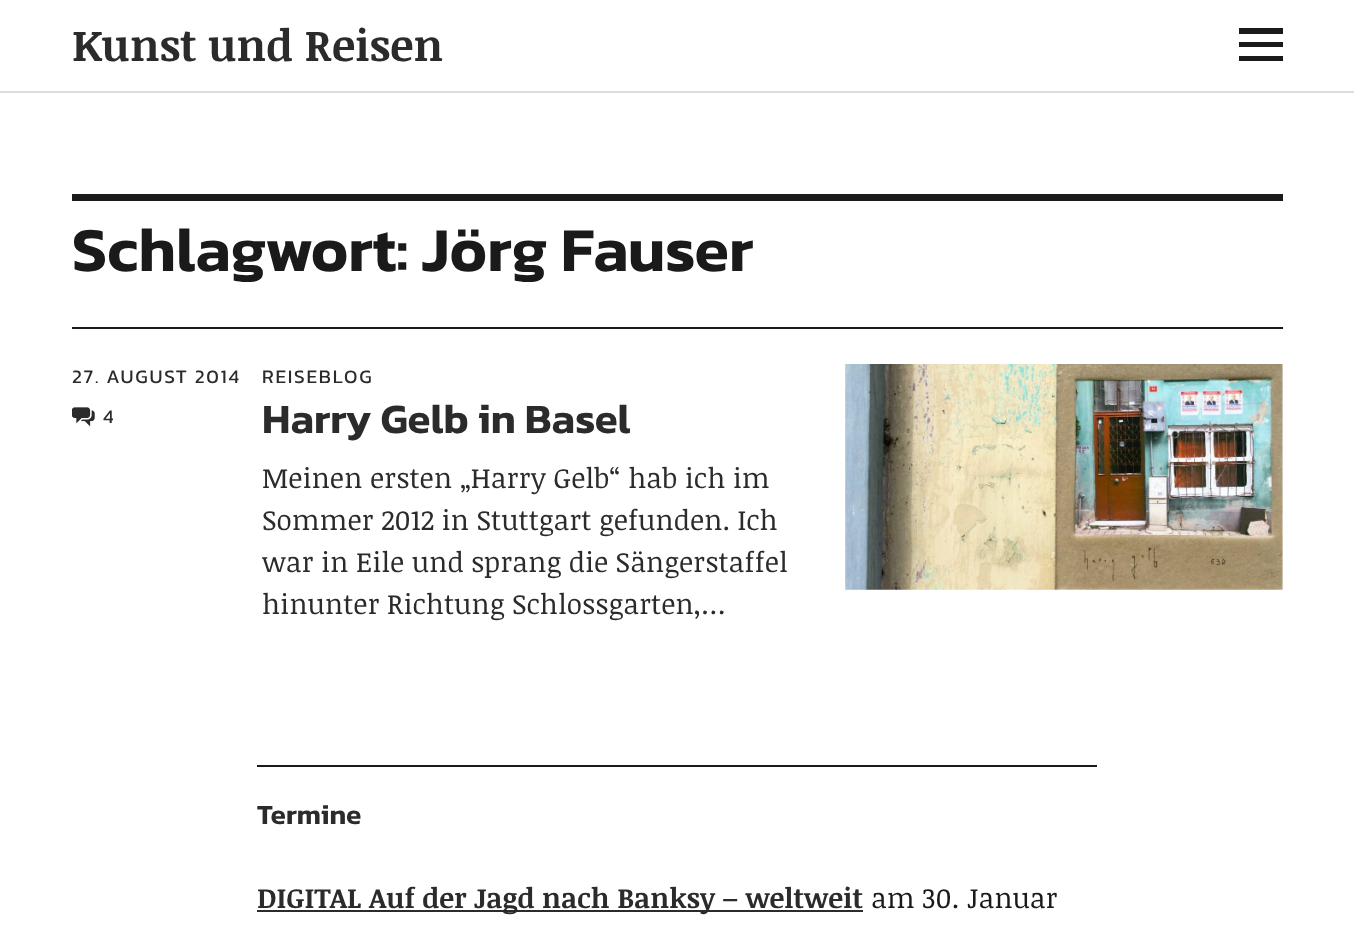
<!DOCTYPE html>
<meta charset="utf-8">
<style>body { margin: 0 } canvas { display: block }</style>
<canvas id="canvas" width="1354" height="938"></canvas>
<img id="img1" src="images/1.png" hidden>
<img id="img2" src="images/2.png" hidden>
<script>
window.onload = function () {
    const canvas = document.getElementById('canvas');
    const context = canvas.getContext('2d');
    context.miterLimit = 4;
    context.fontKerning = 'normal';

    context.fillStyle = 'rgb(255, 255, 255)';
    context.fillRect(0, 0, 1354, 938);
    context.fillStyle = 'rgb(221, 221, 221)';
    context.fillRect(0, 91, 1354, 2);
    context.fillStyle = 'rgb(26, 26, 26)';
    context.beginPath();
    context.moveTo(1239, 61);
    context.lineTo(1239, 56);
    context.lineTo(1283, 56);
    context.lineTo(1283, 61);
    context.closePath();
    context.moveTo(1239, 28);
    context.lineTo(1283, 28);
    context.lineTo(1283, 34);
    context.lineTo(1239, 34);
    context.closePath();
    context.moveTo(1239, 47);
    context.lineTo(1239, 42);
    context.lineTo(1283, 42);
    context.lineTo(1283, 47);
    context.closePath();
    context.fill();
    context.fillRect(72, 194, 1211, 7);
    context.fillRect(72, 327, 1211, 2);
    context.drawImage(document.getElementById('img1'), 72, 407, 23, 20);
    context.drawImage(document.getElementById('img2'), 845, 364, 438, 226);
    context.fillRect(257, 765, 840, 2);
    context.fillStyle = 'rgb(43, 43, 43)';
    context.fillRect(257, 910, 606, 2);
    context.font = 'bold 43.75px Noticia Text';
    context.fillText('Kunst und Reisen', 72, 61);
    context.font = '600 63px Kanit';
    context.fillStyle = 'rgb(26, 26, 26)';
    context.fillText('Schlagwort: Jörg Fauser', 72, 271);
    context.letterSpacing = '1.75px';
    context.font = '19.25px Kanit';
    context.fillStyle = 'rgb(43, 43, 43)';
    context.fillText('27. AUGUST 2014', 72, 383);
    context.fillText('4', 103, 423);
    context.fillText('REISEBLOG', 262, 383);
    context.letterSpacing = '0px';
    context.font = '600 42px Kanit';
    context.fillText('Harry Gelb in Basel', 262, 433);
    context.font = '28px Noticia Text';
    context.fillText('Meinen ersten „Harry Gelb“ hab ich im', 262, 488);
    context.fillText('Sommer 2012 in Stuttgart gefunden. Ich', 262, 530);
    context.fillText('war in Eile und sprang die Sängerstaffel', 262, 572);
    context.fillText('hinunter Richtung Schlossgarten,…', 262, 614);
    context.font = '600 28px Kanit';
    context.fillText('Termine', 257, 824);
    context.font = 'bold 28px Noticia Text';
    context.fillText('DIGITAL Auf der Jagd nach Banksy – weltweit', 257, 908);
    context.font = '28px Noticia Text';
    context.fillStyle = 'rgb(26, 26, 26)';
    context.fillText('am 30. Januar', 871, 908);
};
</script>
